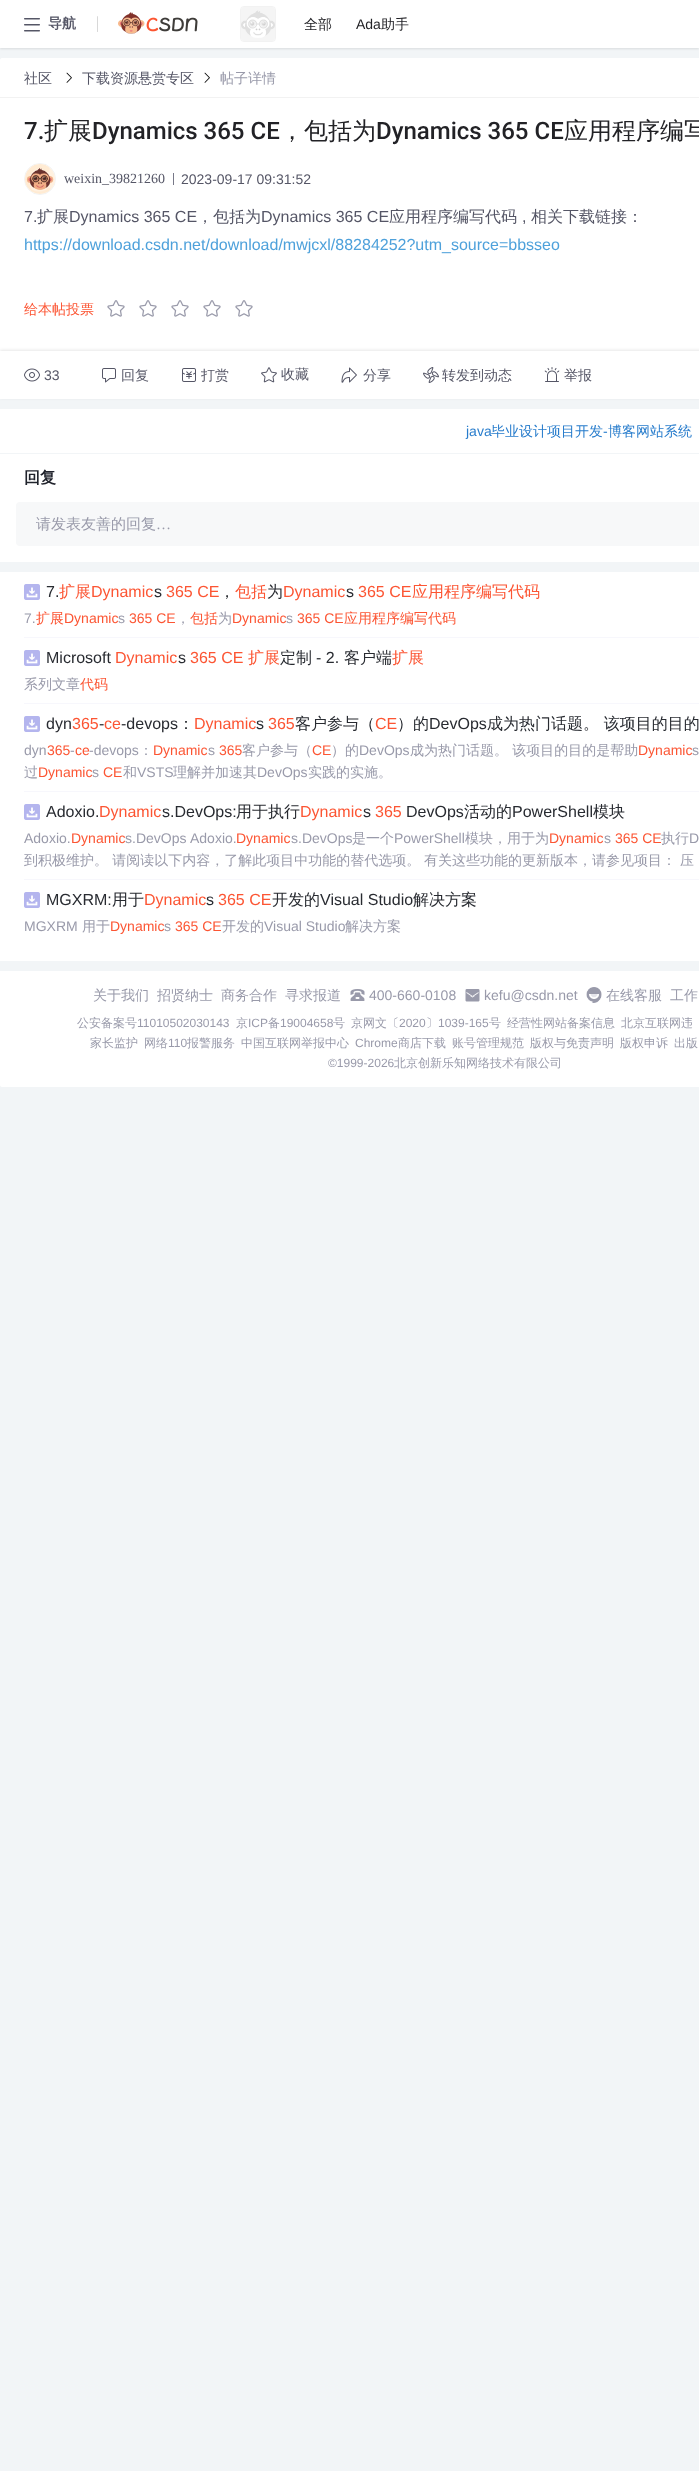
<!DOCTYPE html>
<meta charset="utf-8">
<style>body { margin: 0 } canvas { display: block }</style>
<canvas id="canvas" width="699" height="2471"></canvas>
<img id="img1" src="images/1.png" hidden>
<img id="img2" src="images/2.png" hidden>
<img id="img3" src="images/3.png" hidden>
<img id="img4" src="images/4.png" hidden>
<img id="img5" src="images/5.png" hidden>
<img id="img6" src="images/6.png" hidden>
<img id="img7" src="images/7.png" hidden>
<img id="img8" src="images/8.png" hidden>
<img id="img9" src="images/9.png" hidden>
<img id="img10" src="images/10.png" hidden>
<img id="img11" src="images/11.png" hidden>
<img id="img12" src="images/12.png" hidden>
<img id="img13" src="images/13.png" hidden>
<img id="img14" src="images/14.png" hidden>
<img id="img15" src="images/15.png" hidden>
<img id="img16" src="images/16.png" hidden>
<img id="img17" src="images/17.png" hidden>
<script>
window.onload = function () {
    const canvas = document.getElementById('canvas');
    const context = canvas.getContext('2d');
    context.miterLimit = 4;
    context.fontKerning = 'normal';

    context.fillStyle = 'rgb(242, 245, 247)';
    context.fillRect(0, 0, 699, 2471);
    context.fillStyle = 'rgba(0, 0, 0, 0.1)';
    context.filter = 'blur(1px)';
    context.beginPath();
    context.rect(0, 1, 699, 48);
    context.fill();
    context.filter = 'none';
    context.fillStyle = 'rgb(255, 255, 255)';
    context.fillRect(0, 0, 699, 48);
    context.drawImage(document.getElementById('img1'), 24, 18, 16, 14);
    context.fillStyle = 'rgb(216, 216, 216)';
    context.beginPath();
    context.roundRect(97, 16, 1, 16, 0.5);
    context.fill();
    context.drawImage(document.getElementById('img2'), 118, 12, 80, 22);
    context.beginPath();
    context.roundRect(240.5, 6.5, 35, 35, 3.5);
    context.strokeStyle = 'rgb(242, 242, 242)';
    context.stroke();
    context.drawImage(document.getElementById('img3'), 241, 7, 34, 34);
    context.fillStyle = 'rgb(255, 255, 255)';
    context.beginPath();
    context.moveTo(2, 58);
    context.lineTo(699, 58);
    context.bezierCurveTo(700, 58, 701, 59, 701, 60);
    context.lineTo(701, 98);
    context.lineTo(0, 98);
    context.lineTo(0, 60);
    context.bezierCurveTo(0, 59, 1, 58, 2, 58);
    context.closePath();
    context.fill();
    context.fillStyle = 'rgb(242, 242, 242)';
    context.fillRect(0, 97, 699, 1);
    context.drawImage(document.getElementById('img4'), 66, 72, 6, 11);
    context.drawImage(document.getElementById('img4'), 204, 72, 6, 11);
    context.fillStyle = 'rgb(255, 255, 255)';
    context.fillRect(0, 98, 699, 253);
    context.beginPath();
    context.arc(40, 179, 15.5, 0, 2 * Math.PI);
    context.stroke();
    context.drawImage(document.getElementById('img5'), 25, 164, 30, 30);
    context.fillStyle = 'rgb(119, 120, 136)';
    context.fillRect(173, 173, 1, 12);
    context.drawImage(document.getElementById('img6'), 107, 300, 18, 17);
    context.drawImage(document.getElementById('img6'), 139, 300, 18, 17);
    context.drawImage(document.getElementById('img6'), 171, 300, 18, 17);
    context.drawImage(document.getElementById('img6'), 203, 300, 18, 17);
    context.drawImage(document.getElementById('img6'), 235, 300, 18, 17);
    context.fillStyle = 'rgba(18, 18, 18, 0.1)';
    context.filter = 'blur(1.5px)';
    context.beginPath();
    context.rect(0, 350, 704, 48);
    context.fill();
    context.filter = 'none';
    context.fillStyle = 'rgb(255, 255, 255)';
    context.fillRect(0, 351, 699, 48);
    context.drawImage(document.getElementById('img7'), 24, 368, 16, 14);
    context.drawImage(document.getElementById('img8'), 102, 368, 14, 15);
    context.drawImage(document.getElementById('img9'), 182, 368, 14, 14);
    context.drawImage(document.getElementById('img10'), 261, 367, 16, 16);
    context.drawImage(document.getElementById('img11'), 341, 367, 16, 16);
    context.drawImage(document.getElementById('img12'), 423, 367, 16, 16);
    context.drawImage(document.getElementById('img13'), 544, 367, 16, 15);
    context.fillRect(0, 409, 699, 44);
    context.fillRect(0, 454, 699, 108);
    context.fillStyle = 'rgb(247, 248, 249)';
    context.beginPath();
    context.roundRect(16, 502, 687, 44, 4);
    context.fill();
    context.fillStyle = 'rgb(255, 255, 255)';
    context.fillRect(0, 572, 699, 389);
    context.fillStyle = 'rgb(247, 247, 252)';
    context.fillRect(24, 637, 675, 1);
    context.drawImage(document.getElementById('img14'), 24, 584, 16, 16);
    context.fillRect(24, 703, 675, 1);
    context.drawImage(document.getElementById('img14'), 24, 650, 16, 16);
    context.fillRect(24, 791, 675, 1);
    context.drawImage(document.getElementById('img14'), 24, 716, 16, 16);
    context.fillRect(24, 879, 675, 1);
    context.drawImage(document.getElementById('img14'), 24, 804, 16, 16);
    context.drawImage(document.getElementById('img14'), 24, 892, 16, 16);
    context.fillStyle = 'rgb(255, 255, 255)';
    context.beginPath();
    context.moveTo(0, 971);
    context.lineTo(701, 971);
    context.lineTo(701, 1085);
    context.bezierCurveTo(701, 1086, 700, 1087, 699, 1087);
    context.lineTo(2, 1087);
    context.bezierCurveTo(1, 1087, 0, 1086, 0, 1085);
    context.closePath();
    context.fill();
    context.drawImage(document.getElementById('img15'), 350, 989, 15, 12);
    context.drawImage(document.getElementById('img16'), 465, 989, 15, 13);
    context.drawImage(document.getElementById('img17'), 586, 987, 16, 16);
    context.font = 'bold 14px WenQuanYi Zen Hei';
    context.fillStyle = 'rgb(85, 86, 102)';
    context.fillText('导航', 48, 28);
    context.font = '500 14px WenQuanYi Zen Hei';
    context.fillStyle = 'rgb(34, 34, 38)';
    context.fillText('全部', 304, 29);
    context.font = '14px Liberation Sans';
    context.fillText('Ada', 356, 29);
    context.font = '500 14px WenQuanYi Zen Hei';
    context.fillText('助手', 381, 29);
    context.fillStyle = 'rgb(85, 86, 102)';
    context.fillText('社区', 24, 83);
    context.fillText('下载资源悬赏专区', 82, 83);
    context.fillStyle = 'rgb(153, 154, 170)';
    context.fillText('帖子详情', 220, 83);
    context.font = '500 24px Roboto';
    context.fillStyle = 'rgb(34, 34, 38)';
    context.fillText('7.', 24, 139);
    context.font = '500 24px WenQuanYi Zen Hei';
    context.fillText('扩展', 44, 139);
    context.font = '500 24px Roboto';
    context.fillText('Dynamics 365 CE', 92, 139);
    context.font = '500 24px WenQuanYi Zen Hei';
    context.fillText('，包括为', 280, 139);
    context.font = '500 24px Roboto';
    context.fillText('Dynamics 365 CE', 376, 139);
    context.font = '500 24px WenQuanYi Zen Hei';
    context.fillText('应用程序编写', 564, 139);
    context.font = '14px Liberation Serif';
    context.fillStyle = 'rgb(85, 86, 102)';
    context.fillText('weixin_39821260', 64, 183);
    context.font = '14px Liberation Sans';
    context.fillText('2023-09-17 09:31:52', 181, 184);
    context.font = '16px Liberation Sans';
    context.fillText('7.', 24, 222);
    context.font = '500 16px WenQuanYi Zen Hei';
    context.fillText('扩展', 37, 222);
    context.font = '16px Liberation Sans';
    context.fillText('Dynamics 365 CE', 69, 222);
    context.font = '500 16px WenQuanYi Zen Hei';
    context.fillText('，包括为', 197, 222);
    context.font = '16px Liberation Sans';
    context.fillText('Dynamics 365 CE', 261, 222);
    context.font = '500 16px WenQuanYi Zen Hei';
    context.fillText('应用程序编写代码', 389, 222);
    context.fillText('相关下载链接：', 531, 222);
    context.font = '16px Liberation Sans';
    context.fillText(',', 522, 222);
    context.fillStyle = 'rgb(78, 161, 219)';
    context.fillText('https://download.csdn.net/download/mwjcxl/88284252?utm_source=bbsseo', 24, 250);
    context.font = '500 14px WenQuanYi Zen Hei';
    context.fillStyle = 'rgb(252, 85, 51)';
    context.fillText('给本帖投票', 24, 314);
    context.font = '14px Liberation Sans';
    context.fillStyle = 'rgb(85, 86, 102)';
    context.fillText('33', 44, 380);
    context.font = '500 14px WenQuanYi Zen Hei';
    context.fillText('回复', 121, 380);
    context.fillText('打赏', 201, 380);
    context.fillText('收藏', 281, 379);
    context.fillText('分享', 363, 380);
    context.fillText('转发到动态', 442, 380);
    context.fillText('举报', 564, 380);
    context.font = '14px Liberation Sans';
    context.fillStyle = 'rgb(39, 124, 204)';
    context.fillText('java', 466, 436);
    context.font = '500 14px WenQuanYi Zen Hei';
    context.fillText('毕业设计项目开发', 491, 436);
    context.font = '14px Liberation Sans';
    context.fillText('-', 603, 436);
    context.font = '500 14px WenQuanYi Zen Hei';
    context.fillText('博客网站系统', 608, 436);
    context.font = 'bold 16px WenQuanYi Zen Hei';
    context.fillStyle = 'rgb(32, 35, 44)';
    context.fillText('回复', 24, 483);
    context.font = '500 15px WenQuanYi Zen Hei';
    context.fillStyle = 'rgb(153, 154, 170)';
    context.fillText('请发表友善的回复', 36, 529);
    context.font = '15px Liberation Serif';
    context.fillText('…', 156, 529);
    context.font = '16px Liberation Sans';
    context.fillStyle = 'rgb(40, 43, 49)';
    context.fillText('7.', 46, 597);
    context.font = '500 16px WenQuanYi Zen Hei';
    context.fillStyle = 'rgb(252, 85, 51)';
    context.fillText('扩展', 59, 597);
    context.font = '16px Liberation Sans';
    context.fillText('Dynamic', 91, 597);
    context.fillStyle = 'rgb(40, 43, 49)';
    context.fillText('s', 154, 597);
    context.fillStyle = 'rgb(252, 85, 51)';
    context.fillText('365 CE', 166, 597);
    context.font = '500 16px WenQuanYi Zen Hei';
    context.fillStyle = 'rgb(40, 43, 49)';
    context.fillText('，', 219, 597);
    context.fillStyle = 'rgb(252, 85, 51)';
    context.fillText('包括', 235, 597);
    context.fillStyle = 'rgb(40, 43, 49)';
    context.fillText('为', 267, 597);
    context.font = '16px Liberation Sans';
    context.fillStyle = 'rgb(252, 85, 51)';
    context.fillText('Dynamic', 283, 597);
    context.fillStyle = 'rgb(40, 43, 49)';
    context.fillText('s', 346, 597);
    context.fillStyle = 'rgb(252, 85, 51)';
    context.fillText('365 CE', 358, 597);
    context.font = '500 16px WenQuanYi Zen Hei';
    context.fillText('应用程序编写代码', 412, 597);
    context.font = '14px Liberation Sans';
    context.fillStyle = 'rgb(153, 154, 170)';
    context.fillText('7.', 24, 623);
    context.font = '500 14px WenQuanYi Zen Hei';
    context.fillStyle = 'rgb(252, 85, 51)';
    context.fillText('扩展', 36, 623);
    context.font = '14px Liberation Sans';
    context.fillText('Dynamic', 64, 623);
    context.fillStyle = 'rgb(153, 154, 170)';
    context.fillText('s', 118, 623);
    context.fillStyle = 'rgb(252, 85, 51)';
    context.fillText('365 CE', 129, 623);
    context.font = '500 14px WenQuanYi Zen Hei';
    context.fillStyle = 'rgb(153, 154, 170)';
    context.fillText('，', 176, 623);
    context.fillStyle = 'rgb(252, 85, 51)';
    context.fillText('包括', 190, 623);
    context.fillStyle = 'rgb(153, 154, 170)';
    context.fillText('为', 218, 623);
    context.font = '14px Liberation Sans';
    context.fillStyle = 'rgb(252, 85, 51)';
    context.fillText('Dynamic', 232, 623);
    context.fillStyle = 'rgb(153, 154, 170)';
    context.fillText('s', 286, 623);
    context.fillStyle = 'rgb(252, 85, 51)';
    context.fillText('365 CE', 297, 623);
    context.font = '500 14px WenQuanYi Zen Hei';
    context.fillText('应用程序编写代码', 344, 623);
    context.font = '16px Liberation Sans';
    context.fillStyle = 'rgb(40, 43, 49)';
    context.fillText('Microsoft', 46, 663);
    context.fillStyle = 'rgb(252, 85, 51)';
    context.fillText('Dynamic', 115, 663);
    context.fillStyle = 'rgb(40, 43, 49)';
    context.fillText('s', 178, 663);
    context.fillStyle = 'rgb(252, 85, 51)';
    context.fillText('365 CE', 190, 663);
    context.font = '500 16px WenQuanYi Zen Hei';
    context.fillText('扩展', 248, 663);
    context.fillStyle = 'rgb(40, 43, 49)';
    context.fillText('定制', 280, 663);
    context.font = '16px Liberation Sans';
    context.fillText('- 2.', 316, 663);
    context.font = '500 16px WenQuanYi Zen Hei';
    context.fillText('客户端', 344, 663);
    context.fillStyle = 'rgb(252, 85, 51)';
    context.fillText('扩展', 392, 663);
    context.font = '500 14px WenQuanYi Zen Hei';
    context.fillStyle = 'rgb(153, 154, 170)';
    context.fillText('系列文章', 24, 689);
    context.fillStyle = 'rgb(252, 85, 51)';
    context.fillText('代码', 80, 689);
    context.font = '16px Liberation Sans';
    context.fillStyle = 'rgb(40, 43, 49)';
    context.fillText('dyn', 46, 729);
    context.fillStyle = 'rgb(252, 85, 51)';
    context.fillText('365', 72, 729);
    context.fillStyle = 'rgb(40, 43, 49)';
    context.fillText('-', 99, 729);
    context.fillStyle = 'rgb(252, 85, 51)';
    context.fillText('ce', 104, 729);
    context.fillStyle = 'rgb(40, 43, 49)';
    context.fillText('-devops', 121, 729);
    context.font = '500 16px WenQuanYi Zen Hei';
    context.fillText('：', 178, 729);
    context.font = '16px Liberation Sans';
    context.fillStyle = 'rgb(252, 85, 51)';
    context.fillText('Dynamic', 194, 729);
    context.fillStyle = 'rgb(40, 43, 49)';
    context.fillText('s', 256, 729);
    context.fillStyle = 'rgb(252, 85, 51)';
    context.fillText('365', 268, 729);
    context.font = '500 16px WenQuanYi Zen Hei';
    context.fillStyle = 'rgb(40, 43, 49)';
    context.fillText('客户参与（', 295, 729);
    context.font = '16px Liberation Sans';
    context.fillStyle = 'rgb(252, 85, 51)';
    context.fillText('CE', 375, 729);
    context.font = '500 16px WenQuanYi Zen Hei';
    context.fillStyle = 'rgb(40, 43, 49)';
    context.fillText('）的', 397, 729);
    context.font = '16px Liberation Sans';
    context.fillText('DevOps', 429, 729);
    context.font = '500 16px WenQuanYi Zen Hei';
    context.fillText('成为热门话题。 该项目的目的', 487, 729);
    context.font = '14px Liberation Sans';
    context.fillStyle = 'rgb(153, 154, 170)';
    context.fillText('dyn', 24, 755);
    context.fillStyle = 'rgb(252, 85, 51)';
    context.fillText('365', 47, 755);
    context.fillStyle = 'rgb(153, 154, 170)';
    context.fillText('-', 70, 755);
    context.fillStyle = 'rgb(252, 85, 51)';
    context.fillText('ce', 75, 755);
    context.fillStyle = 'rgb(153, 154, 170)';
    context.fillText('-devops', 89, 755);
    context.font = '500 14px WenQuanYi Zen Hei';
    context.fillText('：', 139, 755);
    context.font = '14px Liberation Sans';
    context.fillStyle = 'rgb(252, 85, 51)';
    context.fillText('Dynamic', 153, 755);
    context.fillStyle = 'rgb(153, 154, 170)';
    context.fillText('s', 208, 755);
    context.fillStyle = 'rgb(252, 85, 51)';
    context.fillText('365', 219, 755);
    context.font = '500 14px WenQuanYi Zen Hei';
    context.fillStyle = 'rgb(153, 154, 170)';
    context.fillText('客户参与（', 242, 755);
    context.font = '14px Liberation Sans';
    context.fillStyle = 'rgb(252, 85, 51)';
    context.fillText('CE', 312, 755);
    context.font = '500 14px WenQuanYi Zen Hei';
    context.fillStyle = 'rgb(153, 154, 170)';
    context.fillText('）的', 331, 755);
    context.font = '14px Liberation Sans';
    context.fillText('DevOps', 359, 755);
    context.font = '500 14px WenQuanYi Zen Hei';
    context.fillText('成为热门话题。 该项目的目的是帮助', 410, 755);
    context.font = '14px Liberation Sans';
    context.fillStyle = 'rgb(252, 85, 51)';
    context.fillText('Dynamic', 638, 755);
    context.fillStyle = 'rgb(153, 154, 170)';
    context.fillText('s', 692, 755);
    context.font = '500 14px WenQuanYi Zen Hei';
    context.fillText('过', 24, 777);
    context.font = '14px Liberation Sans';
    context.fillStyle = 'rgb(252, 85, 51)';
    context.fillText('Dynamic', 38, 777);
    context.fillStyle = 'rgb(153, 154, 170)';
    context.fillText('s', 92, 777);
    context.fillStyle = 'rgb(252, 85, 51)';
    context.fillText('CE', 103, 777);
    context.font = '500 14px WenQuanYi Zen Hei';
    context.fillStyle = 'rgb(153, 154, 170)';
    context.fillText('和', 123, 777);
    context.font = '14px Liberation Sans';
    context.fillText('VSTS', 137, 777);
    context.font = '500 14px WenQuanYi Zen Hei';
    context.fillText('理解并加速其', 173, 777);
    context.font = '14px Liberation Sans';
    context.fillText('DevOps', 257, 777);
    context.font = '500 14px WenQuanYi Zen Hei';
    context.fillText('实践的实施。', 308, 777);
    context.font = '16px Liberation Sans';
    context.fillStyle = 'rgb(40, 43, 49)';
    context.fillText('Adoxio.', 46, 817);
    context.fillStyle = 'rgb(252, 85, 51)';
    context.fillText('Dynamic', 99, 817);
    context.fillStyle = 'rgb(40, 43, 49)';
    context.fillText('s.DevOps:', 162, 817);
    context.font = '500 16px WenQuanYi Zen Hei';
    context.fillText('用于执行', 236, 817);
    context.font = '16px Liberation Sans';
    context.fillStyle = 'rgb(252, 85, 51)';
    context.fillText('Dynamic', 300, 817);
    context.fillStyle = 'rgb(40, 43, 49)';
    context.fillText('s', 363, 817);
    context.fillStyle = 'rgb(252, 85, 51)';
    context.fillText('365', 375, 817);
    context.fillStyle = 'rgb(40, 43, 49)';
    context.fillText('DevOps', 406, 817);
    context.font = '500 16px WenQuanYi Zen Hei';
    context.fillText('活动的', 464, 817);
    context.font = '16px Liberation Sans';
    context.fillText('PowerShell', 512, 817);
    context.font = '500 16px WenQuanYi Zen Hei';
    context.fillText('模块', 593, 817);
    context.font = '14px Liberation Sans';
    context.fillStyle = 'rgb(153, 154, 170)';
    context.fillText('Adoxio.', 24, 843);
    context.fillStyle = 'rgb(252, 85, 51)';
    context.fillText('Dynamic', 71, 843);
    context.fillStyle = 'rgb(153, 154, 170)';
    context.fillText('s.DevOps', 125, 843);
    context.fillText('Adoxio.', 190, 843);
    context.fillStyle = 'rgb(252, 85, 51)';
    context.fillText('Dynamic', 236, 843);
    context.fillStyle = 'rgb(153, 154, 170)';
    context.fillText('s.DevOps', 291, 843);
    context.font = '500 14px WenQuanYi Zen Hei';
    context.fillText('是一个', 352, 843);
    context.font = '14px Liberation Sans';
    context.fillText('PowerShell', 394, 843);
    context.font = '500 14px WenQuanYi Zen Hei';
    context.fillText('模块，用于为', 465, 843);
    context.font = '14px Liberation Sans';
    context.fillStyle = 'rgb(252, 85, 51)';
    context.fillText('Dynamic', 549, 843);
    context.fillStyle = 'rgb(153, 154, 170)';
    context.fillText('s', 604, 843);
    context.fillStyle = 'rgb(252, 85, 51)';
    context.fillText('365 CE', 615, 843);
    context.font = '500 14px WenQuanYi Zen Hei';
    context.fillStyle = 'rgb(153, 154, 170)';
    context.fillText('执行', 661, 843);
    context.font = '14px Liberation Sans';
    context.fillText('D', 689, 843);
    context.font = '500 14px WenQuanYi Zen Hei';
    context.fillText('到积极维护。 请阅读以下内容，了解此项目中功能的替代选项。', 24, 865);
    context.fillText('有关这些功能的更新版本，请参见项目：', 424, 865);
    context.fillText('压', 680, 865);
    context.font = '16px Liberation Sans';
    context.fillStyle = 'rgb(40, 43, 49)';
    context.fillText('MGXRM:', 46, 905);
    context.font = '500 16px WenQuanYi Zen Hei';
    context.fillText('用于', 112, 905);
    context.font = '16px Liberation Sans';
    context.fillStyle = 'rgb(252, 85, 51)';
    context.fillText('Dynamic', 144, 905);
    context.fillStyle = 'rgb(40, 43, 49)';
    context.fillText('s', 206, 905);
    context.fillStyle = 'rgb(252, 85, 51)';
    context.fillText('365 CE', 218, 905);
    context.font = '500 16px WenQuanYi Zen Hei';
    context.fillStyle = 'rgb(40, 43, 49)';
    context.fillText('开发的', 272, 905);
    context.font = '16px Liberation Sans';
    context.fillText('Visual Studio', 320, 905);
    context.font = '500 16px WenQuanYi Zen Hei';
    context.fillText('解决方案', 413, 905);
    context.font = '14px Liberation Sans';
    context.fillStyle = 'rgb(153, 154, 170)';
    context.fillText('MGXRM', 24, 931);
    context.font = '500 14px WenQuanYi Zen Hei';
    context.fillText('用于', 82, 931);
    context.font = '14px Liberation Sans';
    context.fillStyle = 'rgb(252, 85, 51)';
    context.fillText('Dynamic', 110, 931);
    context.fillStyle = 'rgb(153, 154, 170)';
    context.fillText('s', 164, 931);
    context.fillStyle = 'rgb(252, 85, 51)';
    context.fillText('365 CE', 175, 931);
    context.font = '500 14px WenQuanYi Zen Hei';
    context.fillStyle = 'rgb(153, 154, 170)';
    context.fillText('开发的', 222, 931);
    context.font = '14px Liberation Sans';
    context.fillText('Visual Studio', 264, 931);
    context.font = '500 14px WenQuanYi Zen Hei';
    context.fillText('解决方案', 345, 931);
    context.fillText('关于我们', 93, 1000);
    context.fillText('招贤纳士', 157, 1000);
    context.fillText('商务合作', 221, 1000);
    context.fillText('寻求报道', 285, 1000);
    context.font = '14px Liberation Sans';
    context.fillText('400-660-0108', 369, 1000);
    context.fillText('kefu@csdn.net', 484, 1000);
    context.font = '500 14px WenQuanYi Zen Hei';
    context.fillText('在线客服', 606, 1000);
    context.fillText('工作', 670, 1000);
    context.font = '500 12px WenQuanYi Zen Hei';
    context.fillText('公安备案号', 77, 1027);
    context.font = '12px Liberation Sans';
    context.fillText('11010502030143', 137, 1027);
    context.font = '500 12px WenQuanYi Zen Hei';
    context.fillText('京', 236, 1027);
    context.font = '12px Liberation Sans';
    context.fillText('ICP', 248, 1027);
    context.font = '500 12px WenQuanYi Zen Hei';
    context.fillText('备', 268, 1027);
    context.font = '12px Liberation Sans';
    context.fillText('19004658', 280, 1027);
    context.font = '500 12px WenQuanYi Zen Hei';
    context.fillText('号', 333, 1027);
    context.fillText('京网文〔', 351, 1027);
    context.font = '12px Liberation Sans';
    context.fillText('2020', 399, 1027);
    context.font = '500 12px WenQuanYi Zen Hei';
    context.fillText('〕', 426, 1027);
    context.font = '12px Liberation Sans';
    context.fillText('1039-165', 438, 1027);
    context.font = '500 12px WenQuanYi Zen Hei';
    context.fillText('号', 489, 1027);
    context.fillText('经营性网站备案信息', 507, 1027);
    context.fillText('北京互联网违', 621, 1027);
    context.fillText('家长监护', 90, 1047);
    context.fillText('网络', 144, 1047);
    context.font = '12px Liberation Sans';
    context.fillText('110', 168, 1047);
    context.font = '500 12px WenQuanYi Zen Hei';
    context.fillText('报警服务', 187, 1047);
    context.fillText('中国互联网举报中心', 241, 1047);
    context.font = '12px Liberation Sans';
    context.fillText('Chrome', 355, 1047);
    context.font = '500 12px WenQuanYi Zen Hei';
    context.fillText('商店下载', 398, 1047);
    context.fillText('账号管理规范', 452, 1047);
    context.fillText('版权与免责声明', 530, 1047);
    context.fillText('版权申诉', 620, 1047);
    context.fillText('出版', 674, 1047);
    context.font = '12px Liberation Sans';
    context.fillText('©1999-2026', 328, 1067);
    context.font = '500 12px WenQuanYi Zen Hei';
    context.fillText('北京创新乐知网络技术有限公司', 394, 1067);
};
</script>
